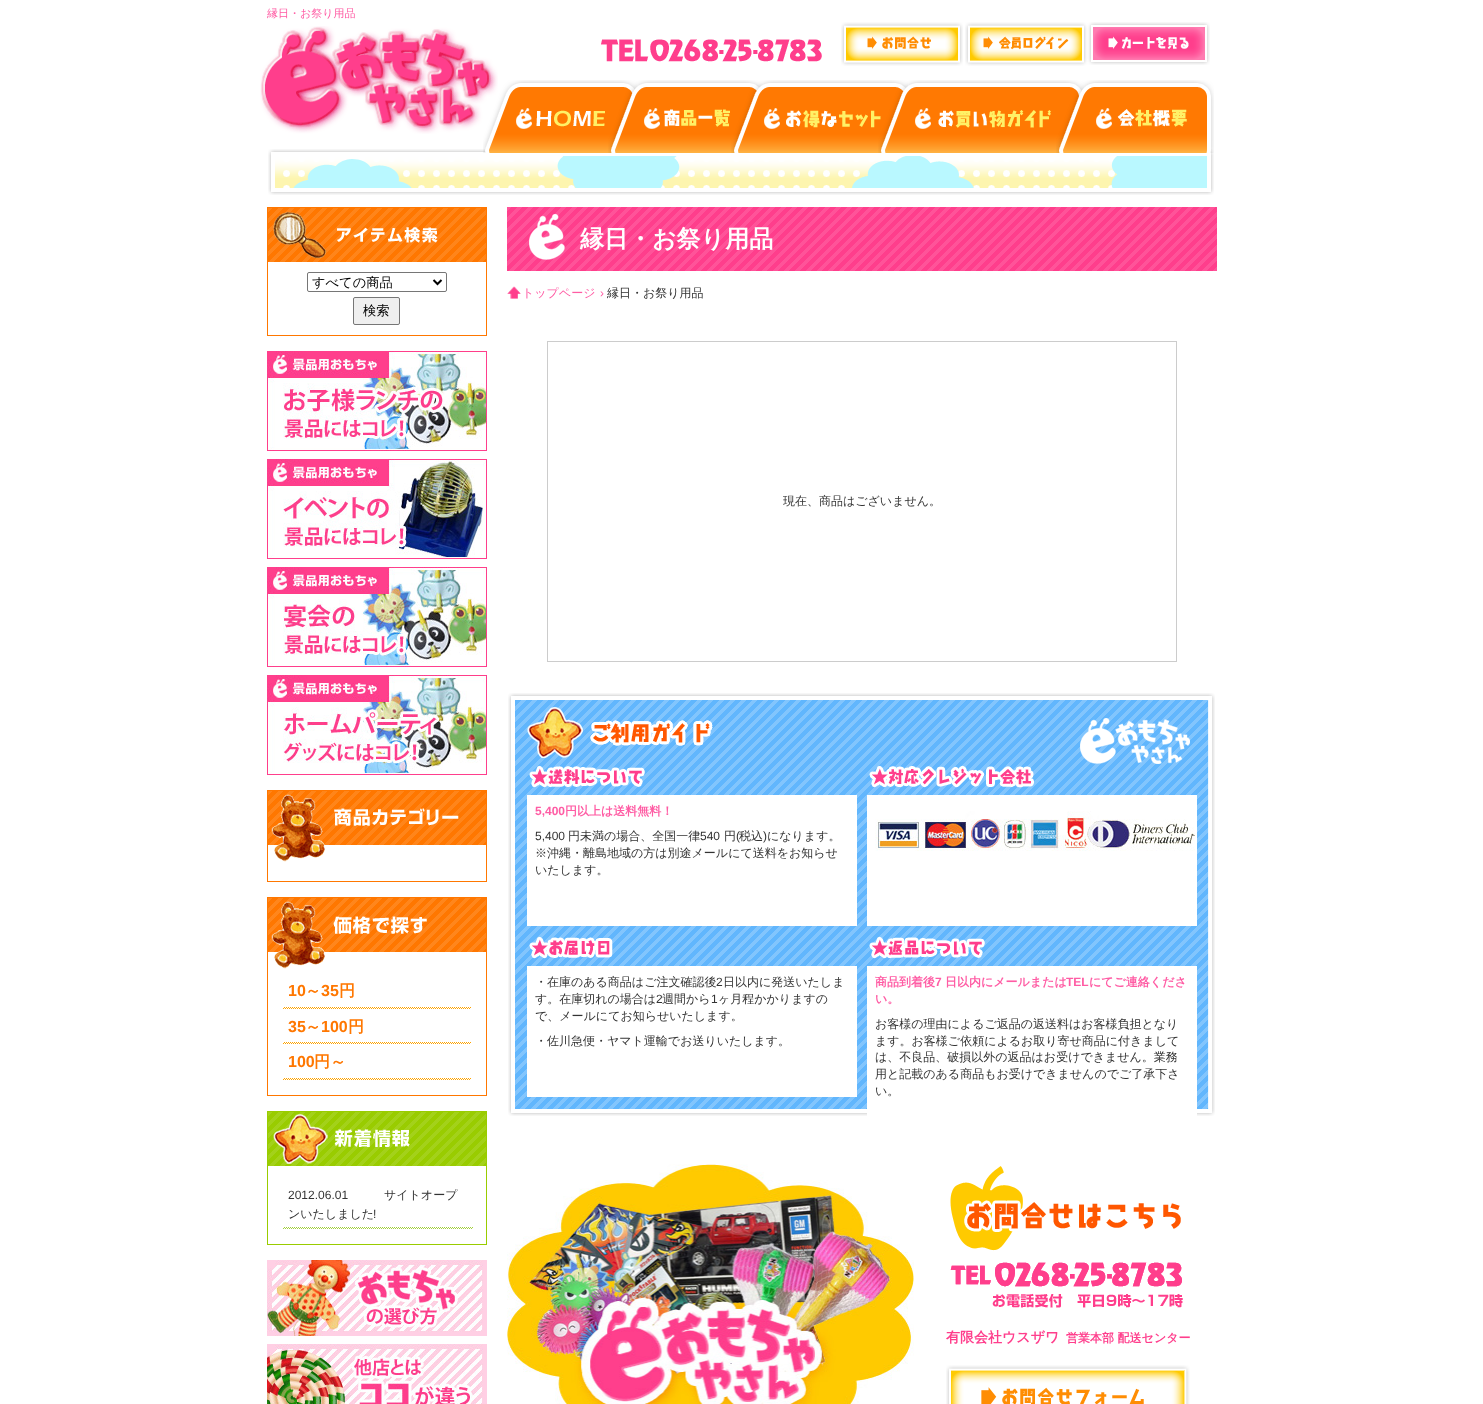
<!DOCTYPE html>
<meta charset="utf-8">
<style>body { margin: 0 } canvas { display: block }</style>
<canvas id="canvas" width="1483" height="1404"></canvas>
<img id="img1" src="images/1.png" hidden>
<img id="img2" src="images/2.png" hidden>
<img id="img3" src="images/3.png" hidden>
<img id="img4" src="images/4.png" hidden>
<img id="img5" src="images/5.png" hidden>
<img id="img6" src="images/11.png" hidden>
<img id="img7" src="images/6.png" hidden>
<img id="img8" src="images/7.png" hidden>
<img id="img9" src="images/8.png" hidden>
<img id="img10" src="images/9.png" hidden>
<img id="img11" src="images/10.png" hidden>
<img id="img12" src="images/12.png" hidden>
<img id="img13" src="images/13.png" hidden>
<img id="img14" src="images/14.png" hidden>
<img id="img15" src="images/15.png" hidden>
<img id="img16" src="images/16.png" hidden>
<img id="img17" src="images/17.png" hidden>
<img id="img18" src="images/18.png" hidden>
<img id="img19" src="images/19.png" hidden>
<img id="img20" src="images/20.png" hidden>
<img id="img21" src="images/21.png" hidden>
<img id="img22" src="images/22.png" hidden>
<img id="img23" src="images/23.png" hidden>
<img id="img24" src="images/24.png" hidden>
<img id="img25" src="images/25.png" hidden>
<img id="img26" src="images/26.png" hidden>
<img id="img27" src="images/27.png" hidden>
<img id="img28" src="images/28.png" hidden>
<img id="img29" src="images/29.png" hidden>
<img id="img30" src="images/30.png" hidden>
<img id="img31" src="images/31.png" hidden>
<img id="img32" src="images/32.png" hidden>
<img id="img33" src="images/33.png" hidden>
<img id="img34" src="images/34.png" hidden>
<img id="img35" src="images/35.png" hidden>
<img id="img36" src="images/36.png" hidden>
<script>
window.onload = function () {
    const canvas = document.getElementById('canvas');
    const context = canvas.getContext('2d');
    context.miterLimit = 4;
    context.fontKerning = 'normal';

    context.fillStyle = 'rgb(255, 255, 255)';
    context.fillRect(0, 0, 1483, 1404);
    context.drawImage(document.getElementById('img1'), 260, 26, 238, 108);
    context.drawImage(document.getElementById('img2'), 601, 39, 221, 23);
    context.drawImage(document.getElementById('img3'), 841, 22, 122, 44);
    context.drawImage(document.getElementById('img4'), 965, 22, 121, 44);
    context.drawImage(document.getElementById('img5'), 1086, 22, 124, 43);
    context.drawImage(document.getElementById('img6'), 268, 149, 946, 46);
    context.drawImage(document.getElementById('img7'), 483, 80, 154, 73);
    context.drawImage(document.getElementById('img8'), 608, 80, 154, 73);
    context.drawImage(document.getElementById('img9'), 731, 80, 177, 73);
    context.drawImage(document.getElementById('img10'), 878, 80, 206, 73);
    context.drawImage(document.getElementById('img11'), 1056, 80, 158, 73);
    context.strokeStyle = 'rgb(255, 119, 0)';
    context.strokeRect(267.5, 207.5, 219, 128);
    context.drawImage(document.getElementById('img12'), 268, 208, 218, 54);
    context.beginPath();
    context.roundRect(307.5, 272.5, 139, 19, 1.5);
    context.strokeStyle = 'rgb(118, 118, 118)';
    context.stroke();
    context.beginPath();
    context.moveTo(433.5, 280);
    context.lineTo(437.5, 284);
    context.lineTo(441.5, 280);
    context.strokeStyle = 'rgb(0, 0, 0)';
    context.lineWidth = 2;
    context.stroke();
    context.fillStyle = 'rgb(239, 239, 239)';
    context.beginPath();
    context.roundRect(353.5, 297.5, 46, 27, 1.5);
    context.fill();
    context.strokeStyle = 'rgb(118, 118, 118)';
    context.lineWidth = 1;
    context.stroke();
    context.drawImage(document.getElementById('img13'), 267, 351, 220, 100);
    context.drawImage(document.getElementById('img14'), 267, 459, 220, 100);
    context.drawImage(document.getElementById('img15'), 267, 567, 220, 100);
    context.drawImage(document.getElementById('img16'), 267, 675, 220, 100);
    context.strokeStyle = 'rgb(255, 119, 0)';
    context.strokeRect(267.5, 790.5, 219, 91);
    context.drawImage(document.getElementById('img17'), 268, 791, 218, 71);
    context.strokeRect(267.5, 897.5, 219, 198);
    context.drawImage(document.getElementById('img18'), 268, 898, 218, 71);
    context.drawImage(document.getElementById('img19'), 283, 1007, 188, 2);
    context.drawImage(document.getElementById('img19'), 283, 1042, 188, 2);
    context.drawImage(document.getElementById('img19'), 283, 1078, 188, 2);
    context.strokeStyle = 'rgb(153, 204, 0)';
    context.strokeRect(267.5, 1111.5, 219, 133);
    context.drawImage(document.getElementById('img20'), 268, 1112, 218, 54);
    context.drawImage(document.getElementById('img21'), 283, 1227, 190, 2);
    context.drawImage(document.getElementById('img22'), 267, 1260, 220, 76);
    context.drawImage(document.getElementById('img23'), 267, 1344, 220, 60);
    context.drawImage(document.getElementById('img24'), 507, 207, 710, 64);
    context.drawImage(document.getElementById('img25'), 507, 286, 14, 13);
    context.strokeStyle = 'rgb(204, 204, 204)';
    context.strokeRect(547.5, 341.5, 629, 320);
    context.drawImage(document.getElementById('img26'), 508, 693, 707, 423);
    context.drawImage(document.getElementById('img27'), 527, 707, 186, 51);
    context.drawImage(document.getElementById('img28'), 529, 765, 116, 23);
    context.fillStyle = 'rgb(255, 255, 255)';
    context.fillRect(527, 795, 330, 131);
    context.drawImage(document.getElementById('img29'), 869, 765, 165, 23);
    context.fillRect(867, 795, 330, 131);
    context.drawImage(document.getElementById('img30'), 875, 811, 320, 40);
    context.drawImage(document.getElementById('img31'), 529, 936, 84, 23);
    context.fillRect(527, 966, 330, 131);
    context.drawImage(document.getElementById('img32'), 869, 936, 116, 23);
    context.fillRect(867, 966, 330, 150);
    context.drawImage(document.getElementById('img33'), 507, 1164, 407, 240);
    context.drawImage(document.getElementById('img34'), 950, 1166, 231, 85);
    context.drawImage(document.getElementById('img35'), 950, 1262, 233, 46);
    context.drawImage(document.getElementById('img36'), 946, 1365, 244, 39);
    context.font = '500 11px WenQuanYi Zen Hei';
    context.fillStyle = 'rgb(255, 92, 164)';
    context.fillText('縁日・お祭り用品', 267, 17);
    context.font = '500 13.25px WenQuanYi Zen Hei';
    context.fillStyle = 'rgb(0, 0, 0)';
    context.fillText('すべての商品', 312, 287);
    context.fillText('検索', 363, 315);
    context.font = 'bold 16px Liberation Sans';
    context.fillStyle = 'rgb(255, 119, 0)';
    context.fillText('10', 288, 996);
    context.font = 'bold 16px WenQuanYi Zen Hei';
    context.fillText('～', 305, 996);
    context.font = 'bold 16px Liberation Sans';
    context.fillText('35', 321, 996);
    context.font = 'bold 16px WenQuanYi Zen Hei';
    context.fillText('円', 339, 996);
    context.font = 'bold 16px Liberation Sans';
    context.fillText('35', 288, 1032);
    context.font = 'bold 16px WenQuanYi Zen Hei';
    context.fillText('～', 305, 1032);
    context.font = 'bold 16px Liberation Sans';
    context.fillText('100', 321, 1032);
    context.font = 'bold 16px WenQuanYi Zen Hei';
    context.fillText('円', 348, 1032);
    context.font = 'bold 16px Liberation Sans';
    context.fillText('100', 288, 1067);
    context.font = 'bold 16px WenQuanYi Zen Hei';
    context.fillText('円～', 314, 1067);
    context.font = '500 12px WenQuanYi Zen Hei';
    context.fillStyle = 'rgb(51, 51, 51)';
    context.fillText('サイトオープ', 384, 1199);
    context.fillText('ンいたしました', 288, 1218);
    context.font = '12px Liberation Sans';
    context.fillText('!', 373, 1218);
    context.fillText('2012.06.01', 288, 1199);
    context.font = 'bold 24px WenQuanYi Zen Hei';
    context.fillStyle = 'rgb(255, 255, 255)';
    context.fillText('縁日・お祭り用品', 580, 247);
    context.font = '500 12px WenQuanYi Zen Hei';
    context.fillStyle = 'rgb(255, 92, 164)';
    context.fillText('トップページ', 522, 297);
    context.font = '12px Liberation Sans';
    context.fillText('›', 600, 297);
    context.font = '500 12px WenQuanYi Zen Hei';
    context.fillStyle = 'rgb(51, 51, 51)';
    context.fillText('縁日・お祭り用品', 607, 297);
    context.fillText('現在、商品はございません。', 783, 505);
    context.font = 'bold 12px Liberation Sans';
    context.fillStyle = 'rgb(255, 92, 164)';
    context.fillText('5,400', 535, 815);
    context.font = 'bold 12px WenQuanYi Zen Hei';
    context.fillText('円以上は送料無料！', 565, 815);
    context.font = '12px Liberation Sans';
    context.fillStyle = 'rgb(51, 51, 51)';
    context.fillText('5,400', 535, 840);
    context.font = '500 12px WenQuanYi Zen Hei';
    context.fillText('円未満の場合、全国一律', 568, 840);
    context.font = '12px Liberation Sans';
    context.fillText('540', 700, 840);
    context.font = '500 12px WenQuanYi Zen Hei';
    context.fillText('円', 724, 840);
    context.font = '12px Liberation Sans';
    context.fillText('(', 736, 840);
    context.font = '500 12px WenQuanYi Zen Hei';
    context.fillText('税込', 739, 840);
    context.font = '12px Liberation Sans';
    context.fillText(')', 763, 840);
    context.font = '500 12px WenQuanYi Zen Hei';
    context.fillText('になります。', 767, 840);
    context.fillText('※沖縄・離島地域の方は別途メールにて送料をお知らせ', 535, 857);
    context.fillText('いたします。', 535, 874);
    context.fillText('・在庫のある商品はご注文確認後', 535, 986);
    context.font = '12px Liberation Sans';
    context.fillText('2', 716, 986);
    context.font = '500 12px WenQuanYi Zen Hei';
    context.fillText('日以内に発送いたしま', 723, 986);
    context.fillText('す。在庫切れの場合は', 535, 1003);
    context.font = '12px Liberation Sans';
    context.fillText('2', 656, 1003);
    context.font = '500 12px WenQuanYi Zen Hei';
    context.fillText('週間から', 662, 1003);
    context.font = '12px Liberation Sans';
    context.fillText('1', 711, 1003);
    context.font = '500 12px WenQuanYi Zen Hei';
    context.fillText('ヶ月程かかりますの', 718, 1003);
    context.fillText('で、メールにてお知らせいたします。', 535, 1020);
    context.fillText('・佐川急便・ヤマト運輸でお送りいたします。', 535, 1045);
    context.font = 'bold 12px WenQuanYi Zen Hei';
    context.fillStyle = 'rgb(255, 92, 164)';
    context.fillText('商品到着後', 875, 986);
    context.font = 'bold 12px Liberation Sans';
    context.fillText('7', 935, 986);
    context.font = 'bold 12px WenQuanYi Zen Hei';
    context.fillText('日以内にメールまたは', 945, 986);
    context.font = 'bold 12px Liberation Sans';
    context.fillText('TEL', 1066, 986);
    context.font = 'bold 12px WenQuanYi Zen Hei';
    context.fillText('にてご連絡くださ', 1089, 986);
    context.fillText('い。', 875, 1003);
    context.font = '500 12px WenQuanYi Zen Hei';
    context.fillStyle = 'rgb(51, 51, 51)';
    context.fillText('お客様の理由によるご返品の返送料はお客様負担となり', 875, 1028);
    context.fillText('ます。お客様ご依頼によるお取り寄せ商品に付きまして', 875, 1045);
    context.fillText('は、不良品、破損以外の返品はお受けできません。業務', 875, 1061);
    context.fillText('用と記載のある商品もお受けできませんのでご了承下さ', 875, 1078);
    context.fillText('い。', 875, 1095);
    context.font = 'bold 14px WenQuanYi Zen Hei';
    context.fillStyle = 'rgb(255, 62, 140)';
    context.fillText('有限会社ウスザワ', 946, 1342);
    context.font = 'bold 12px WenQuanYi Zen Hei';
    context.fillText('営業本部 配送センター', 1066, 1342);
};
</script>
